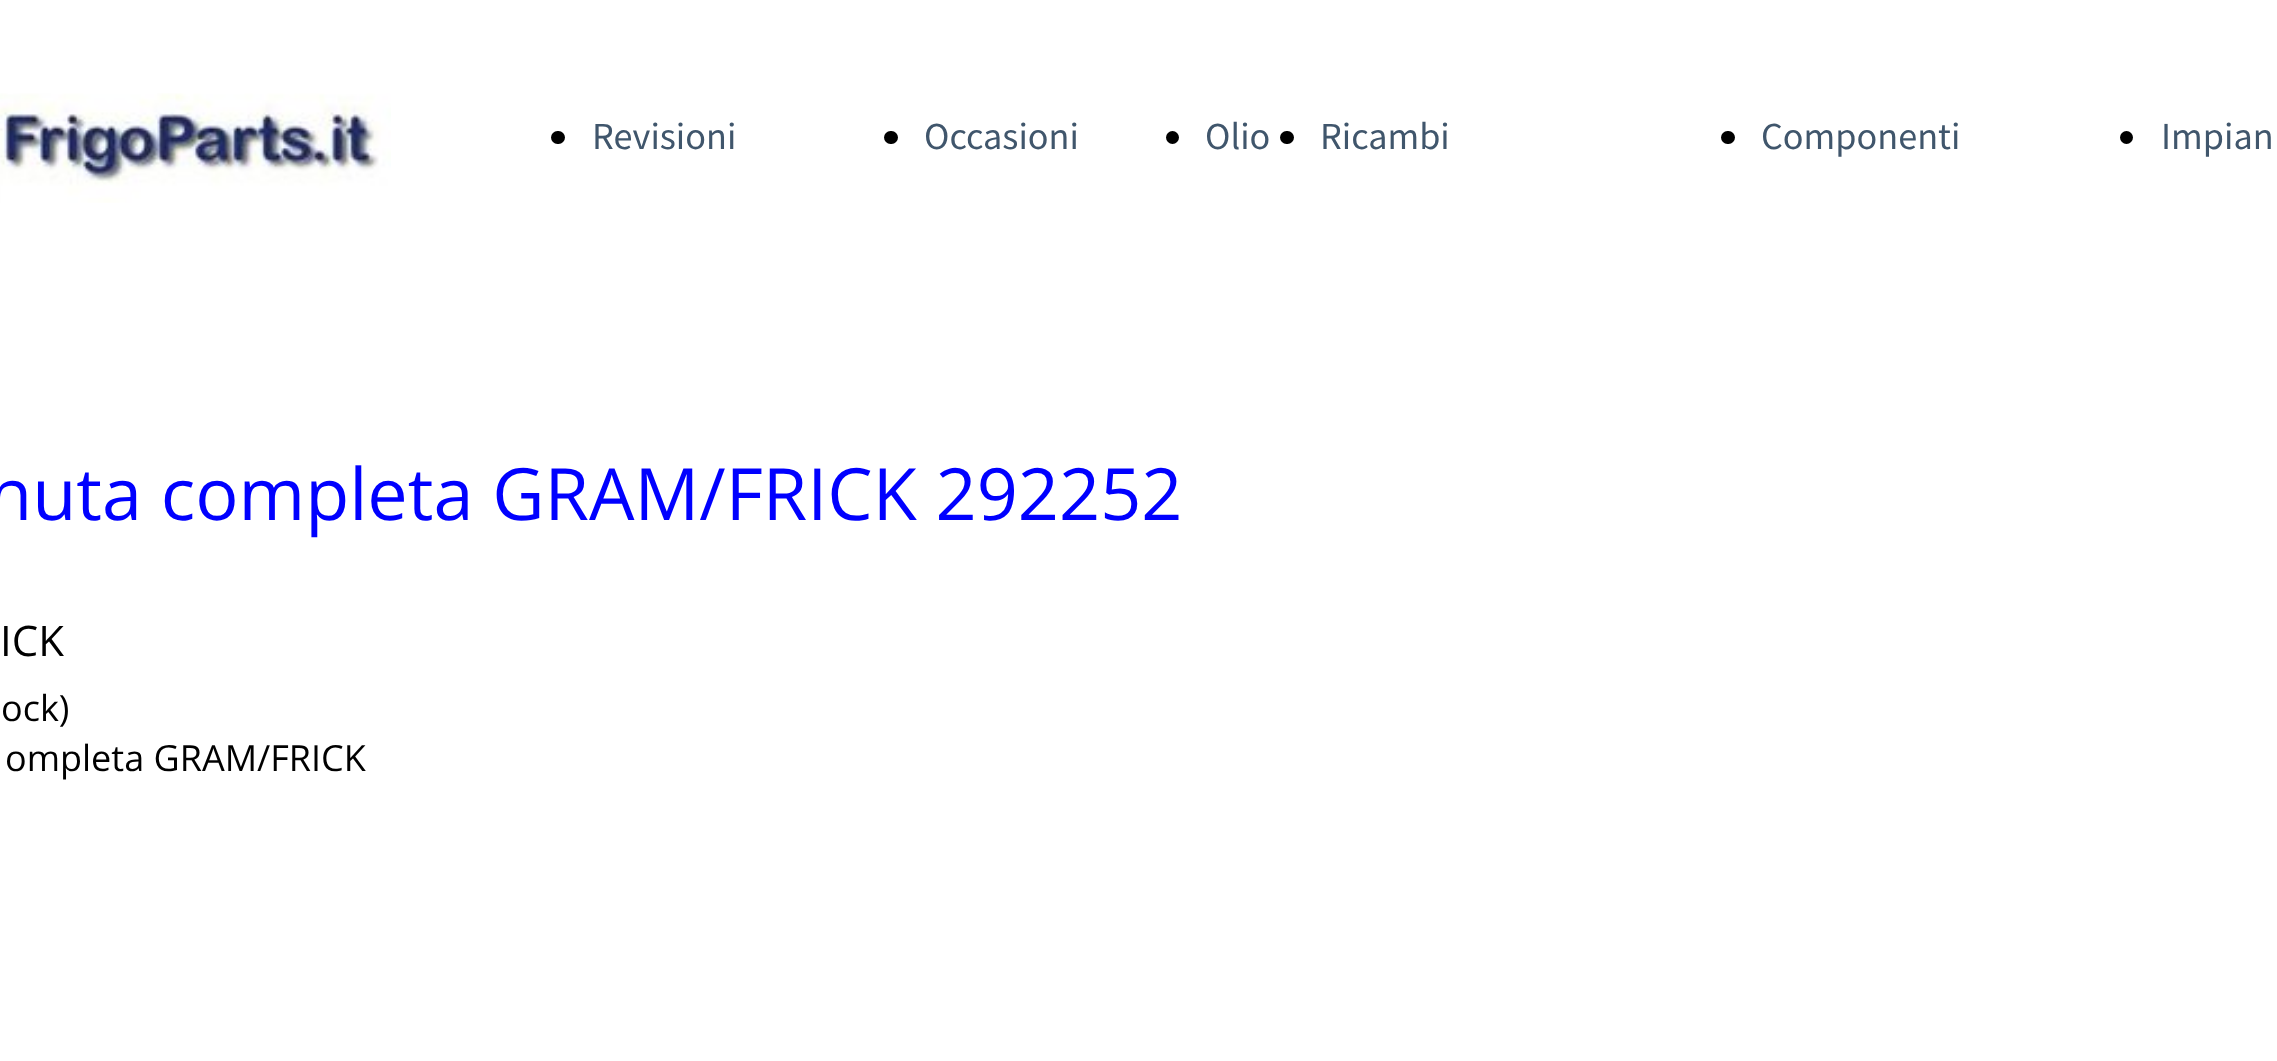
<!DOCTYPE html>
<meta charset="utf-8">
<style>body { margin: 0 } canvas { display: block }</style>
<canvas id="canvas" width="2277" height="1061"></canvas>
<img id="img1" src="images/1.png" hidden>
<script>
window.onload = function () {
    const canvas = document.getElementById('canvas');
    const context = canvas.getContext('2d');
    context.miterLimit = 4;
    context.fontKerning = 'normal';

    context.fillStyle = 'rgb(255, 255, 255)';
    context.fillRect(0, 0, 2277, 1061);
    context.drawImage(document.getElementById('img1'), 0, 93, 391, 110);
    context.fillStyle = 'rgb(0, 0, 0)';
    context.beginPath();
    context.roundRect(551, 131, 14, 13, 6.5);
    context.fill();
    context.beginPath();
    context.roundRect(884, 131, 14, 13, 6.5);
    context.fill();
    context.beginPath();
    context.arc(1172.5, 137.5, 6.5, 0, 2 * Math.PI);
    context.fill();
    context.beginPath();
    context.roundRect(1280, 131, 14, 13, 6.5);
    context.fill();
    context.beginPath();
    context.roundRect(1721, 131, 14, 13, 6.5);
    context.fill();
    context.beginPath();
    context.arc(2126.5, 137.5, 6.5, 0, 2 * Math.PI);
    context.fill();
    context.font = '38.25px Source Sans Pro';
    context.fillStyle = 'rgb(64, 86, 108)';
    context.fillText('Revisioni', 592, 149);
    context.fillText('Occasioni', 924, 149);
    context.fillText('Olio', 1205, 149);
    context.fillText('Ricambi', 1320, 149);
    context.fillText('Componenti', 1761, 149);
    context.fillText('Impian', 2161, 149);
    context.font = '72px Open Sans';
    context.fillStyle = 'rgb(0, 0, 255)';
    context.fillText('nuta completa GRAM/FRICK 292252', -12, 520);
    context.font = '42px Open Sans';
    context.fillStyle = 'rgb(0, 0, 0)';
    context.fillText('ICK', 0, 656);
    context.font = '36px Open Sans';
    context.fillText('ock)', 1, 721);
    context.fillText('ompleta GRAM/FRICK', 5, 771);
};
</script>
